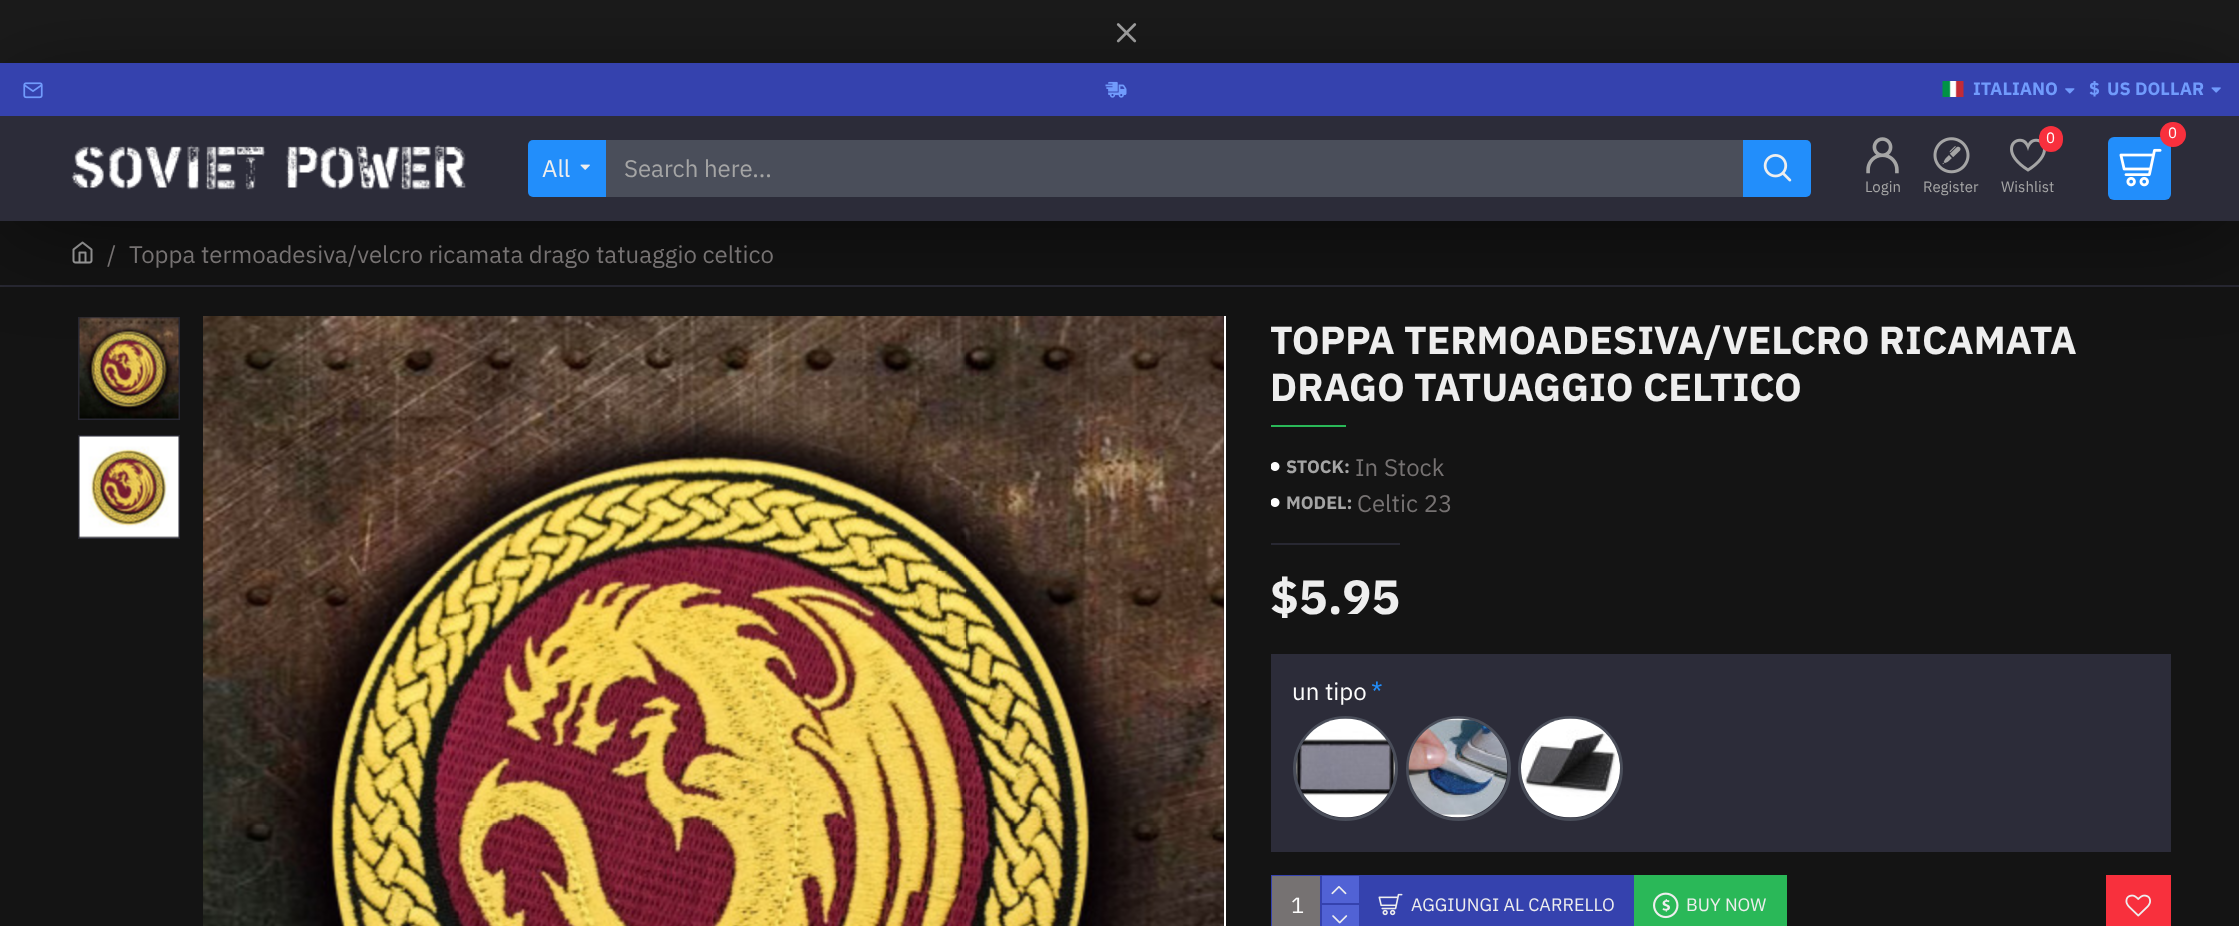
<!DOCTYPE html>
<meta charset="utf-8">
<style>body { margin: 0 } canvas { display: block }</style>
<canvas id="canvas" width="2239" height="926"></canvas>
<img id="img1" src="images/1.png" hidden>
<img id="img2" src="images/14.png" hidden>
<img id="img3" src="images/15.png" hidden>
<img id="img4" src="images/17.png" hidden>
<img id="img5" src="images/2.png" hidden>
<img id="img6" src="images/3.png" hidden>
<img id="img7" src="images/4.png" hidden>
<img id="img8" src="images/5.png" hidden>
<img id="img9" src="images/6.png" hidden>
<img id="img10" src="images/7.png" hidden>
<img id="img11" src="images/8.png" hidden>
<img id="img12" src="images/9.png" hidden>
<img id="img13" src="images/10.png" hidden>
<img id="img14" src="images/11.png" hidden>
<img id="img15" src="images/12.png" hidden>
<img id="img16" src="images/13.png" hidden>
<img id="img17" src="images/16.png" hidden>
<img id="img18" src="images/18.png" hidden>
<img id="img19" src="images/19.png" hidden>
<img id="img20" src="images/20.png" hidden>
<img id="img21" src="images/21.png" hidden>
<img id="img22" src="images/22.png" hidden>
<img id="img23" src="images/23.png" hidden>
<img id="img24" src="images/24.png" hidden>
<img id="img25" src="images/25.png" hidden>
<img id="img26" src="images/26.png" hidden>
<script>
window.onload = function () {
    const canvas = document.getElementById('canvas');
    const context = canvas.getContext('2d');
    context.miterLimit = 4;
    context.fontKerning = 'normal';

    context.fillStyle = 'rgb(20, 20, 20)';
    context.fillRect(0, 0, 2239, 926);
    context.fillStyle = 'rgb(27, 27, 27)';
    context.fillRect(0, 0, 2239, 63);
    context.drawImage(document.getElementById('img1'), 1116, 23, 21, 20);
    context.drawImage(document.getElementById('img2'), 72, 241, 21, 23);
    context.fillStyle = 'rgb(40, 40, 50)';
    context.fillRect(0, 285, 2239, 2);
    context.strokeStyle = 'rgb(40, 40, 50)';
    context.lineWidth = 2;
    context.strokeRect(79, 318, 100, 101);
    context.drawImage(document.getElementById('img3'), 79, 317, 100, 102);
    context.drawImage(document.getElementById('img4'), 203, 316, 1021, 610);
    context.fillStyle = 'rgb(255, 255, 255)';
    context.fillRect(1224, 316, 2, 610);
    context.fillStyle = 'rgba(0, 0, 0, 0.5)';
    context.filter = 'blur(49px)';
    context.beginPath();
    context.rect(8, 86, 2224, 142);
    context.fill();
    context.filter = 'none';
    context.fillStyle = 'rgb(44, 44, 57)';
    context.fillRect(0, 116, 2239, 105);
    context.fillStyle = 'rgb(53, 66, 174)';
    context.fillRect(0, 63, 2239, 53);
    context.drawImage(document.getElementById('img5'), 23, 82, 20, 17);
    context.drawImage(document.getElementById('img6'), 1105, 81, 22, 17);
    context.drawImage(document.getElementById('img7'), 1942, 81, 22, 16);
    context.drawImage(document.getElementById('img8'), 2065, 88, 10, 6);
    context.drawImage(document.getElementById('img9'), 2211, 87, 10, 6);
    context.drawImage(document.getElementById('img10'), 71, 145, 396, 45);
    context.fillStyle = 'rgb(34, 142, 251)';
    context.beginPath();
    context.roundRect(528, 140, 78, 57, [5, 0, 0, 5]);
    context.fill();
    context.drawImage(document.getElementById('img11'), 580, 164, 10, 6);
    context.fillStyle = 'rgb(74, 78, 90)';
    context.fillRect(606, 140, 1137, 57);
    context.fillStyle = 'rgb(34, 142, 251)';
    context.beginPath();
    context.roundRect(1743, 140, 68, 57, [0, 5, 5, 0]);
    context.fill();
    context.drawImage(document.getElementById('img12'), 1763, 154, 29, 28);
    context.drawImage(document.getElementById('img13'), 1866, 137, 33, 37);
    context.drawImage(document.getElementById('img14'), 1933, 137, 37, 37);
    context.drawImage(document.getElementById('img15'), 2010, 138, 36, 34);
    context.fillStyle = 'rgb(248, 48, 61)';
    context.beginPath();
    context.roundRect(2039, 126, 24, 26, 12);
    context.fill();
    context.fillStyle = 'rgb(34, 142, 251)';
    context.beginPath();
    context.roundRect(2108, 137, 63, 63, 6);
    context.fill();
    context.fillStyle = 'rgb(248, 48, 61)';
    context.beginPath();
    context.roundRect(2160, 122, 26, 25, 12.5);
    context.fill();
    context.drawImage(document.getElementById('img16'), 2119, 148, 43, 39);
    context.strokeRect(79, 436, 100, 102);
    context.drawImage(document.getElementById('img17'), 79, 436, 100, 102);
    context.fillStyle = 'rgb(42, 184, 88)';
    context.fillRect(1271, 425, 75, 2);
    context.drawImage(document.getElementById('img18'), 1271, 462, 9, 9);
    context.drawImage(document.getElementById('img18'), 1271, 498, 9, 9);
    context.fillStyle = 'rgb(40, 40, 50)';
    context.fillRect(1271, 543, 129, 2);
    context.fillStyle = 'rgb(44, 44, 57)';
    context.fillRect(1271, 654, 900, 198);
    context.beginPath();
    context.arc(1345.5, 768.5, 51, 0, 2 * Math.PI);
    context.strokeStyle = 'rgb(74, 78, 90)';
    context.lineWidth = 3;
    context.stroke();
    context.drawImage(document.getElementById('img19'), 1296, 718, 99, 100);
    context.beginPath();
    context.arc(1458.5, 768.5, 51, 0, 2 * Math.PI);
    context.stroke();
    context.drawImage(document.getElementById('img20'), 1408, 718, 100, 100);
    context.beginPath();
    context.arc(1570.5, 768.5, 51, 0, 2 * Math.PI);
    context.stroke();
    context.drawImage(document.getElementById('img21'), 1521, 718, 99, 100);
    context.strokeStyle = 'rgb(53, 66, 174)';
    context.lineWidth = 2;
    context.strokeRect(1272, 876, 88, 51);
    context.fillStyle = 'rgb(118, 114, 114)';
    context.fillRect(1272, 876, 48, 50);
    context.fillStyle = 'rgb(53, 66, 174)';
    context.fillRect(1320, 876, 2, 50);
    context.fillStyle = 'rgb(81, 98, 213)';
    context.fillRect(1322, 876, 37, 27);
    context.fillStyle = 'rgb(53, 66, 174)';
    context.fillRect(1322, 903, 37, 2);
    context.drawImage(document.getElementById('img22'), 1331, 886, 16, 9);
    context.fillStyle = 'rgb(81, 98, 213)';
    context.fillRect(1322, 905, 37, 21);
    context.drawImage(document.getElementById('img23'), 1332, 915, 16, 9);
    context.fillStyle = 'rgb(53, 66, 174)';
    context.fillRect(1361, 875, 273, 51);
    context.drawImage(document.getElementById('img24'), 1378, 893, 25, 23);
    context.fillStyle = 'rgb(42, 184, 88)';
    context.fillRect(1634, 875, 153, 51);
    context.drawImage(document.getElementById('img25'), 1653, 892, 26, 27);
    context.fillStyle = 'rgb(248, 48, 61)';
    context.fillRect(2106, 875, 65, 51);
    context.drawImage(document.getElementById('img26'), 2125, 894, 26, 23);
    context.font = 'bold 18px IBM Plex Sans';
    context.fillStyle = 'rgb(113, 155, 252)';
    context.fillText('ITALIANO', 1973, 95);
    context.fillText('$', 2089, 95);
    context.fillText('US DOLLAR', 2107, 95);
    context.font = '24px IBM Plex Sans';
    context.fillStyle = 'rgb(238, 238, 238)';
    context.fillText('All', 542, 177);
    context.fillStyle = 'rgb(165, 165, 165)';
    context.fillText('Search here...', 624, 177);
    context.font = '15px IBM Plex Sans';
    context.fillText('Login', 1865, 192);
    context.fillText('Register', 1923, 192);
    context.fillStyle = 'rgb(253, 253, 253)';
    context.fillText('0', 2046, 143);
    context.fillStyle = 'rgb(165, 165, 165)';
    context.fillText('Wishlist', 2001, 192);
    context.fillStyle = 'rgb(253, 253, 253)';
    context.fillText('0', 2168, 138);
    context.font = '24px IBM Plex Sans';
    context.fillStyle = 'rgb(118, 114, 114)';
    context.fillText('/', 107, 263);
    context.fillText('Toppa termoadesiva/velcro ricamata drago tatuaggio celtico', 129, 263);
    context.font = 'bold 39px IBM Plex Sans';
    context.fillStyle = 'rgb(238, 238, 238)';
    context.fillText('TOPPA TERMOADESIVA/VELCRO RICAMATA', 1270, 354);
    context.fillText('DRAGO TATUAGGIO CELTICO', 1270, 401);
    context.font = 'bold 18px IBM Plex Sans';
    context.fillStyle = 'rgb(165, 165, 165)';
    context.fillText('STOCK:', 1286, 473);
    context.font = '24px IBM Plex Sans';
    context.fillStyle = 'rgb(118, 114, 114)';
    context.fillText('In Stock', 1355, 476);
    context.font = 'bold 18px IBM Plex Sans';
    context.fillStyle = 'rgb(165, 165, 165)';
    context.fillText('MODEL:', 1286, 509);
    context.font = '24px IBM Plex Sans';
    context.fillStyle = 'rgb(118, 114, 114)';
    context.fillText('Celtic 23', 1357, 512);
    context.font = 'bold 48px IBM Plex Sans';
    context.fillStyle = 'rgb(238, 238, 238)';
    context.fillText('$5.95', 1270, 614);
    context.font = '24px IBM Plex Sans';
    context.fillStyle = 'rgb(253, 253, 253)';
    context.fillText('un tipo', 1292, 700);
    context.font = '26px IBM Plex Sans';
    context.fillStyle = 'rgb(34, 142, 251)';
    context.fillText('*', 1371, 701);
    context.font = '22px IBM Plex Sans';
    context.fillStyle = 'rgb(253, 253, 253)';
    context.fillText('1', 1291, 913);
    context.font = '18px IBM Plex Sans';
    context.fillStyle = 'rgb(238, 238, 238)';
    context.fillText('AGGIUNGI AL CARRELLO', 1411, 911);
    context.fillText('BUY NOW', 1686, 911);
};
</script>
